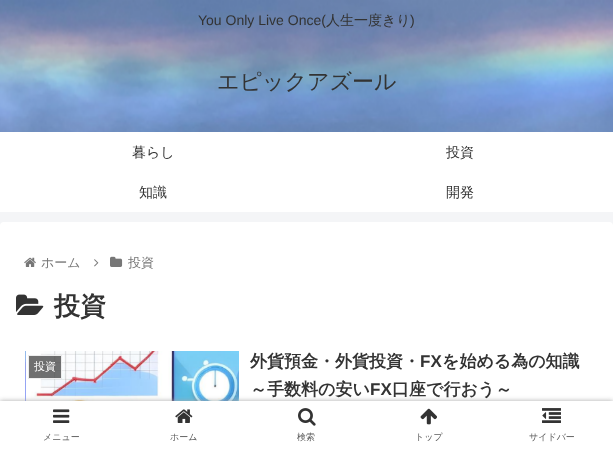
<!DOCTYPE html>
<meta charset="utf-8">
<style>body { margin: 0 } canvas { display: block }</style>
<canvas id="canvas" width="613" height="451"></canvas>
<img id="img1" src="images/1.png" hidden>
<img id="img2" src="images/2.png" hidden>
<img id="img3" src="images/3.png" hidden>
<img id="img4" src="images/4.png" hidden>
<img id="img5" src="images/5.png" hidden>
<img id="img6" src="images/6.png" hidden>
<img id="img7" src="images/7.png" hidden>
<img id="img8" src="images/8.png" hidden>
<img id="img9" src="images/9.png" hidden>
<img id="img10" src="images/10.png" hidden>
<img id="img11" src="images/11.png" hidden>
<script>
window.onload = function () {
    const canvas = document.getElementById('canvas');
    const context = canvas.getContext('2d');
    context.miterLimit = 4;
    context.fontKerning = 'normal';

    context.fillStyle = 'rgb(244, 245, 247)';
    context.fillRect(0, 0, 613, 451);
    context.fillStyle = 'rgb(255, 255, 255)';
    context.fillRect(0, 132, 613, 80);
    context.drawImage(document.getElementById('img1'), 0, 0, 613, 132);
    context.beginPath();
    context.roundRect(0, 222, 613, 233, 4);
    context.fill();
    context.drawImage(document.getElementById('img2'), 24, 257, 12, 10);
    context.drawImage(document.getElementById('img3'), 94, 259, 5, 8);
    context.drawImage(document.getElementById('img4'), 110, 256, 13, 11);
    context.drawImage(document.getElementById('img5'), 16, 294, 28, 21);
    context.drawImage(document.getElementById('img6'), 25, 351, 214, 50);
    context.fillStyle = 'rgba(51, 51, 51, 0.7)';
    context.beginPath();
    context.rect(28.5, 355.5, 33, 23);
    context.fill();
    context.strokeStyle = 'rgb(238, 238, 238)';
    context.stroke();
    context.fillStyle = 'rgb(169, 169, 169)';
    context.filter = 'blur(2.5px)';
    context.beginPath();
    context.rect(0, 401, 613, 50);
    context.fill();
    context.filter = 'none';
    context.fillStyle = 'rgb(255, 255, 255)';
    context.fillRect(0, 401, 613, 50);
    context.drawImage(document.getElementById('img7'), 53, 409, 17, 14);
    context.drawImage(document.getElementById('img8'), 175, 409, 18, 14);
    context.drawImage(document.getElementById('img9'), 298, 408, 18, 18);
    context.drawImage(document.getElementById('img10'), 420, 408, 17, 17);
    context.drawImage(document.getElementById('img11'), 542, 408, 19, 15);
    context.font = '14px Liberation Sans';
    context.fillStyle = 'rgb(51, 51, 51)';
    context.fillText('You Only Live Once(', 198, 25);
    context.font = '500 14px WenQuanYi Zen Hei';
    context.fillText('人生一度きり', 326, 25);
    context.font = '14px Liberation Sans';
    context.fillText(')', 410, 25);
    context.font = '500 22px WenQuanYi Zen Hei';
    context.fillText('エピックアズール', 217, 89);
    context.font = '500 14px WenQuanYi Zen Hei';
    context.fillText('暮らし', 132, 157);
    context.fillText('投資', 446, 157);
    context.fillText('知識', 139, 197);
    context.fillText('開発', 446, 197);
    context.font = '500 13px WenQuanYi Zen Hei';
    context.fillStyle = 'rgb(119, 119, 119)';
    context.fillText('ホーム', 41, 267);
    context.fillText('投資', 128, 267);
    context.font = 'bold 26px WenQuanYi Zen Hei';
    context.fillStyle = 'rgb(51, 51, 51)';
    context.fillText('投資', 54, 315);
    context.font = '500 11px WenQuanYi Zen Hei';
    context.fillStyle = 'rgb(255, 255, 255)';
    context.fillText('投資', 34, 370);
    context.font = 'bold 17px WenQuanYi Zen Hei';
    context.fillStyle = 'rgb(51, 51, 51)';
    context.fillText('外貨預金・外貨投資・', 250, 367);
    context.font = 'bold 17px Liberation Sans';
    context.fillText('FX', 420, 367);
    context.font = 'bold 17px WenQuanYi Zen Hei';
    context.fillText('を始める為の知識', 442, 367);
    context.fillText('～手数料の安い', 250, 395);
    context.font = 'bold 17px Liberation Sans';
    context.fillText('FX', 370, 395);
    context.font = 'bold 17px WenQuanYi Zen Hei';
    context.fillText('口座で行おう～', 392, 395);
    context.font = '500 9px WenQuanYi Zen Hei';
    context.fillStyle = 'rgb(92, 92, 92)';
    context.fillText('メニュー', 43, 440);
    context.fillText('ホーム', 170, 440);
    context.fillText('検索', 297, 440);
    context.fillText('トップ', 415, 440);
    context.fillText('サイドバー', 529, 440);
};
</script>
